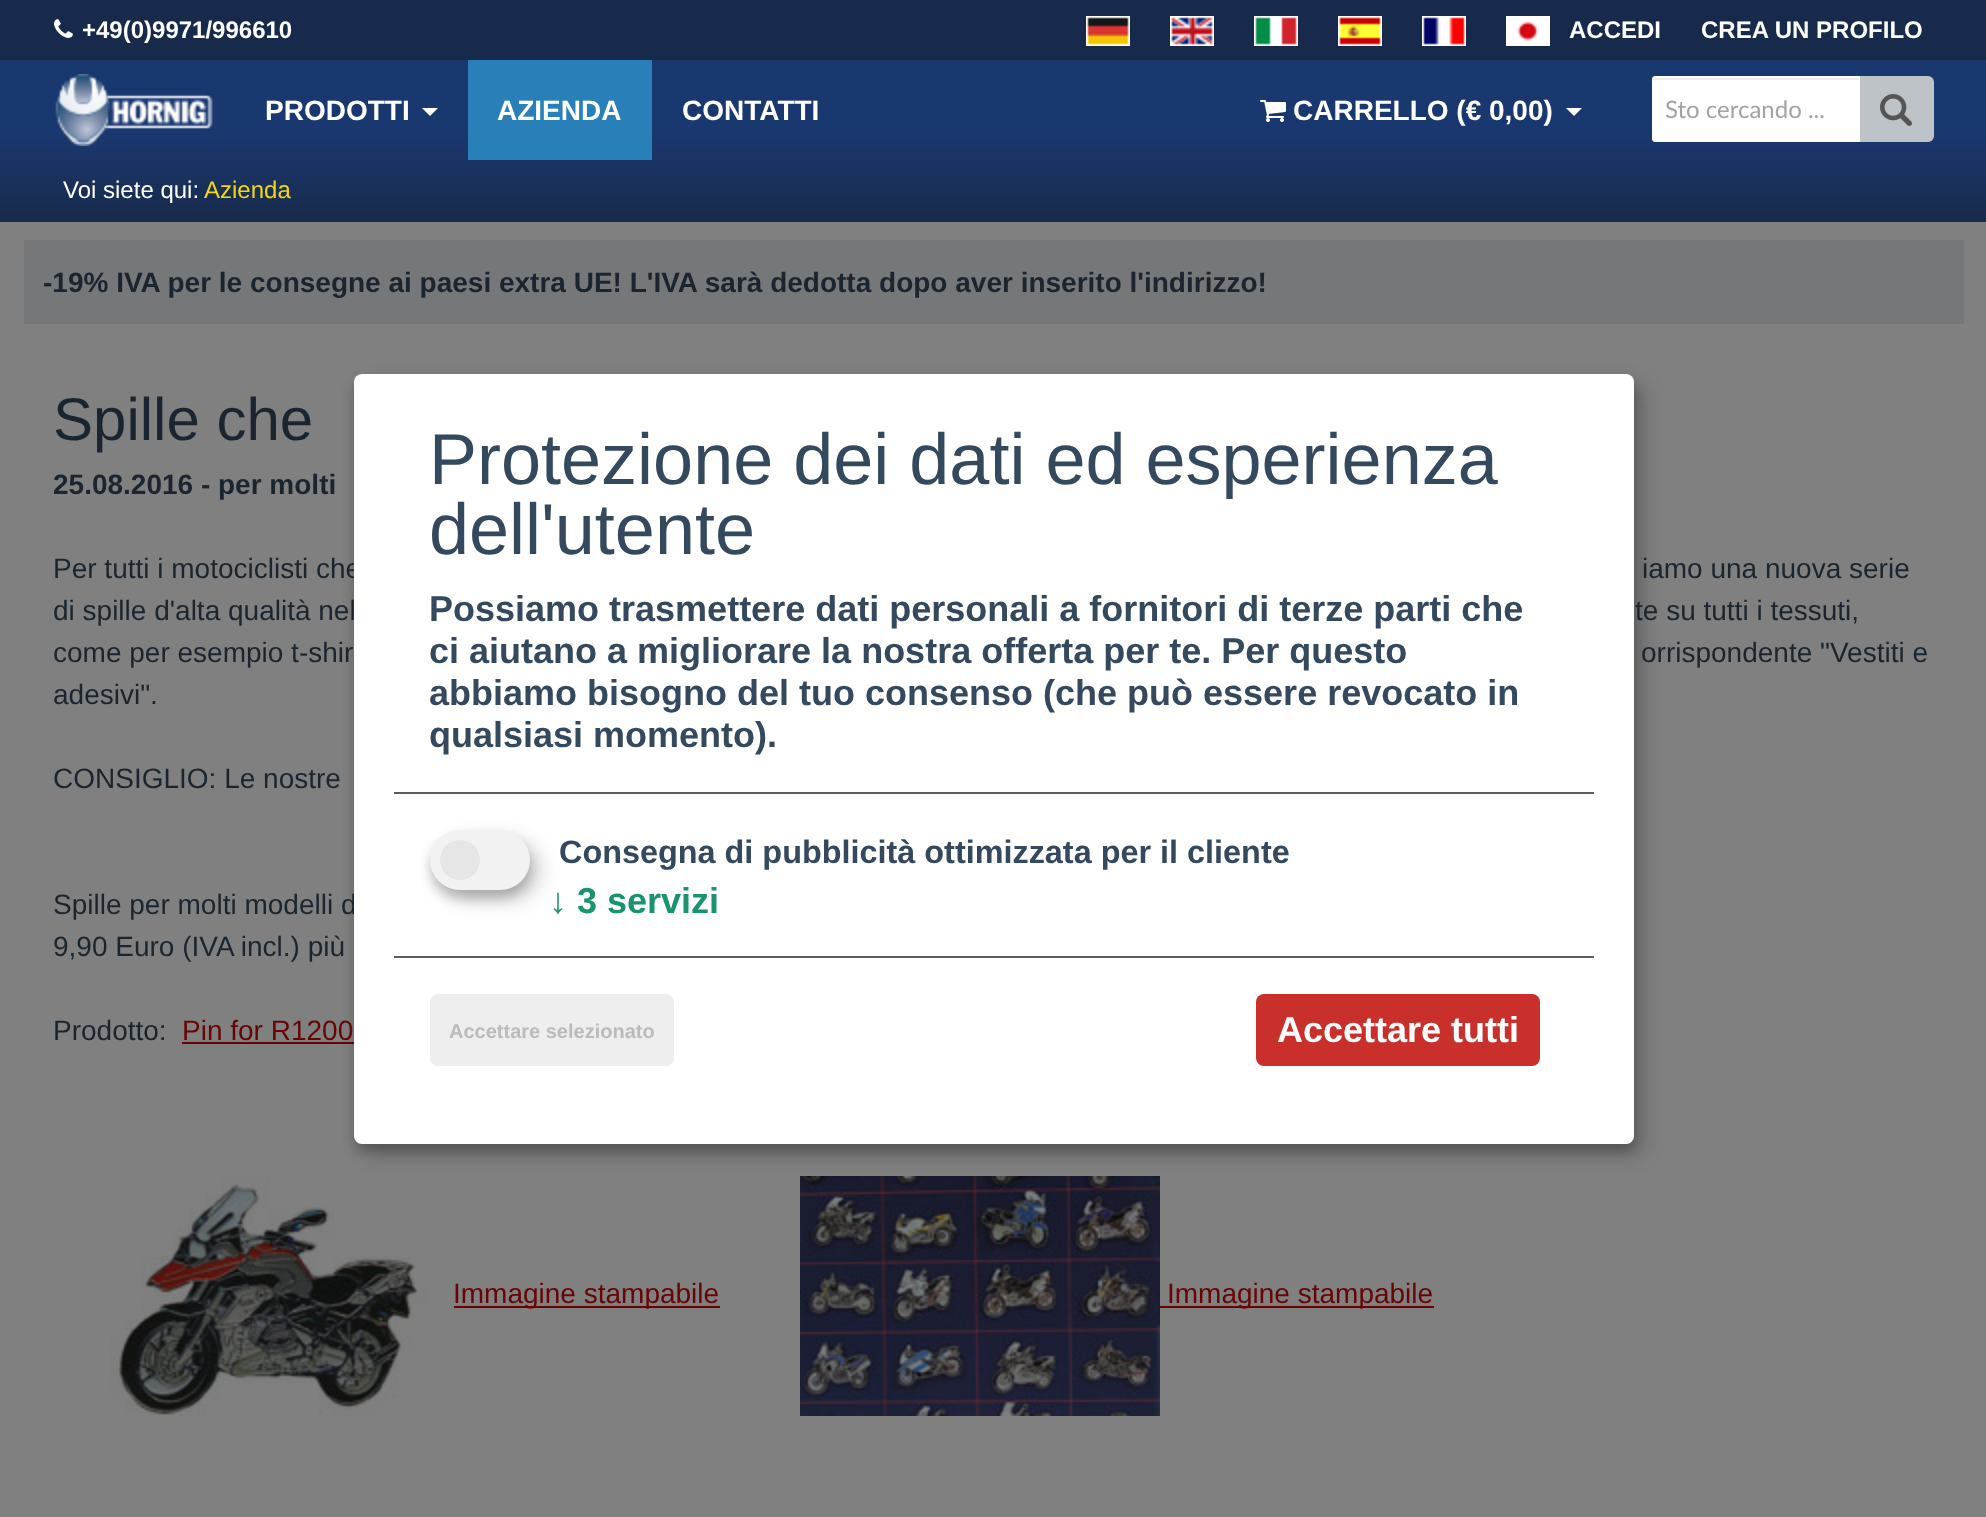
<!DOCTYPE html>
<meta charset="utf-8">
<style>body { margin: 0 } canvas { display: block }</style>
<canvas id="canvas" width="1986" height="1517"></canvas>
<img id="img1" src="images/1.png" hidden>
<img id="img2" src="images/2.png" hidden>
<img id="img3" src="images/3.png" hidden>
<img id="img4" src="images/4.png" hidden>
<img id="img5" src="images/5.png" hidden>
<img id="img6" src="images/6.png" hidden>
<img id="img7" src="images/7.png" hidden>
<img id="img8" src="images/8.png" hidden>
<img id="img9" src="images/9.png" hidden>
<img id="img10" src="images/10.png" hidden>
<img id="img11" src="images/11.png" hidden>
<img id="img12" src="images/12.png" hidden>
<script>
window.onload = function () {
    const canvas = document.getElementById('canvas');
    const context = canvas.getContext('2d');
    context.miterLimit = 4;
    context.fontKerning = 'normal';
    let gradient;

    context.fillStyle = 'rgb(128, 128, 128)';
    context.fillRect(0, 0, 1986, 1517);
    gradient = context.createLinearGradient(993, 0, 993, 222);
    gradient.addColorStop(0.6, 'rgb(26, 56, 112)');
    gradient.addColorStop(1, 'rgb(24, 42, 75)');
    context.fillStyle = gradient;
    context.fillRect(0, 60, 1986, 162);
    context.fillStyle = 'rgb(24, 42, 75)';
    context.fillRect(0, 0, 1986, 60);
    context.drawImage(document.getElementById('img1'), 54, 19, 19, 19);
    context.drawImage(document.getElementById('img2'), 1086, 16, 44, 30);
    context.drawImage(document.getElementById('img3'), 1170, 16, 44, 30);
    context.drawImage(document.getElementById('img4'), 1254, 16, 44, 30);
    context.drawImage(document.getElementById('img5'), 1338, 16, 44, 30);
    context.drawImage(document.getElementById('img6'), 1422, 16, 44, 30);
    context.drawImage(document.getElementById('img7'), 1506, 16, 44, 30);
    context.drawImage(document.getElementById('img8'), 55, 74, 158, 72);
    context.fillStyle = 'rgb(255, 255, 255)';
    context.beginPath();
    context.moveTo(422, 108);
    context.lineTo(438, 108);
    context.lineTo(430, 116);
    context.closePath();
    context.fill();
    context.fillStyle = 'rgb(41, 128, 185)';
    context.fillRect(468, 60, 184, 100);
    context.drawImage(document.getElementById('img9'), 1260, 100, 26, 22);
    context.fillStyle = 'rgb(255, 255, 255)';
    context.beginPath();
    context.moveTo(1566, 108);
    context.lineTo(1582, 108);
    context.lineTo(1574, 116);
    context.closePath();
    context.fill();
    context.beginPath();
    context.roundRect(1652, 76, 208, 66, [4, 0, 0, 4]);
    context.fill();
    context.fillStyle = 'rgb(236, 236, 236)';
    context.beginPath();
    context.moveTo(1656, 80);
    context.lineTo(1858, 80);
    context.lineTo(1858, 78);
    context.lineTo(1656, 78);
    context.bezierCurveTo(1654, 78, 1654, 80, 1654, 82);
    context.bezierCurveTo(1654, 81, 1655, 80, 1656, 80);
    context.closePath();
    context.fill();
    context.beginPath();
    context.roundRect(1653, 77, 206, 64, [3, 0, 0, 3]);
    context.strokeStyle = 'rgb(255, 255, 255)';
    context.lineWidth = 2;
    context.stroke();
    context.fillStyle = 'rgb(189, 195, 199)';
    context.beginPath();
    context.roundRect(1860, 76, 74, 66, [0, 6, 6, 0]);
    context.fill();
    context.drawImage(document.getElementById('img10'), 1880, 94, 32, 32);
    context.fillStyle = 'rgb(118, 119, 120)';
    context.fillRect(24, 242, 1940, 82);
    context.fillStyle = 'rgb(119, 119, 119)';
    context.fillRect(24, 240, 1940, 2);
    context.fillStyle = 'rgb(103, 4, 4)';
    context.fillRect(182, 1042, 172, 2);
    context.drawImage(document.getElementById('img11'), 110, 1176, 317, 240);
    context.fillRect(454, 1306, 266, 2);
    context.drawImage(document.getElementById('img12'), 800, 1176, 360, 240);
    context.fillRect(1160, 1306, 274, 2);
    context.fillStyle = 'rgba(0, 0, 0, 0.19)';
    context.filter = 'blur(10px)';
    context.beginPath();
    context.roundRect(364, 384, 1280, 770, 8);
    context.fill();
    context.filter = 'none';
    context.fillStyle = 'rgba(0, 0, 0, 0.2)';
    context.filter = 'blur(6px)';
    context.beginPath();
    context.roundRect(354, 382, 1280, 770, 8);
    context.fill();
    context.filter = 'none';
    context.font = 'bold 24px Liberation Sans';
    context.fillStyle = 'rgb(255, 255, 255)';
    context.fillText('+49(0)9971/996610', 82, 38);
    context.fillText('ACCEDI', 1569, 38);
    context.fillText('CREA UN PROFILO', 1701, 38);
    context.font = 'bold 28px Liberation Sans';
    context.fillText('PRODOTTI', 265, 120);
    context.fillText('AZIENDA', 497, 120);
    context.fillText('CONTATTI', 682, 120);
    context.fillText('CARRELLO (€ 0,00)', 1293, 120);
    context.font = '24px Lato';
    context.fillStyle = 'rgb(163, 163, 163)';
    context.fillText('Sto cercando ...', 1665, 118);
    context.font = '24px Liberation Sans';
    context.fillStyle = 'rgb(255, 255, 255)';
    context.fillText('Voi siete qui:', 63, 198);
    context.fillStyle = 'rgb(242, 213, 19)';
    context.fillText('Azienda', 204, 198);
    context.font = 'bold 28px Liberation Sans';
    context.fillStyle = 'rgb(26, 37, 47)';
    context.fillText('-19% IVA per le consegne ai paesi extra UE! L\'IVA sarà dedotta dopo aver inserito l\'indirizzo!', 43, 292);
    context.font = '60px Liberation Sans';
    context.fillText('Spille che', 53, 440);
    context.font = 'bold 28px Liberation Sans';
    context.fillText('25.08.2016 - per molti', 53, 494);
    context.font = '28px Liberation Sans';
    context.fillText('Per tutti i motociclisti che', 53, 578);
    context.fillText('iamo una nuova serie', 1642, 578);
    context.fillText('di spille d\'alta qualità nel', 53, 620);
    context.fillText('te su tutti i tessuti,', 1635, 620);
    context.fillText('come per esempio t-shir', 53, 662);
    context.fillText('orrispondente "Vestiti e', 1641, 662);
    context.fillText('adesivi".', 53, 704);
    context.fillText('CONSIGLIO: Le nostre', 53, 788);
    context.fillText('Spille per molti modelli d', 53, 914);
    context.fillText('9,90 Euro (IVA incl.) più', 53, 956);
    context.fillText('Prodotto:', 53, 1040);
    context.fillStyle = 'rgb(103, 4, 4)';
    context.fillText('Pin for R1200', 182, 1040);
    context.fillText('Immagine stampabile', 453, 1303);
    context.fillText('Immagine stampabile', 1167, 1303);
    context.fillStyle = 'rgb(255, 255, 255)';
    context.beginPath();
    context.roundRect(354, 374, 1280, 770, 8);
    context.fill();
    context.fillStyle = 'rgb(92, 92, 92)';
    context.fillRect(394, 792, 1200, 2);
    context.font = '72px Liberation Sans';
    context.fillStyle = 'rgb(52, 73, 94)';
    context.fillText('Protezione dei dati ed esperienza', 429, 484);
    context.fillText('dell\'utente', 429, 554);
    context.font = 'bold 36px Liberation Sans';
    context.fillText('Possiamo trasmettere dati personali a fornitori di terze parti che', 429, 621);
    context.fillText('ci aiutano a migliorare la nostra offerta per te. Per questo', 429, 663);
    context.fillText('abbiamo bisogno del tuo consenso (che può essere revocato in', 429, 705);
    context.fillText('qualsiasi momento).', 429, 747);
    context.fillStyle = 'rgba(0, 0, 0, 0.19)';
    context.filter = 'blur(10px)';
    context.beginPath();
    context.roundRect(440, 840, 100, 60, 30);
    context.fill();
    context.filter = 'none';
    context.fillStyle = 'rgba(0, 0, 0, 0.2)';
    context.filter = 'blur(6px)';
    context.beginPath();
    context.roundRect(430, 838, 100, 60, 30);
    context.fill();
    context.filter = 'none';
    context.fillStyle = 'rgb(242, 242, 242)';
    context.beginPath();
    context.roundRect(430, 830, 100, 60, 30);
    context.fill();
    context.fillStyle = 'rgb(230, 230, 230)';
    context.beginPath();
    context.arc(460, 860, 20, 0, 2 * Math.PI);
    context.fill();
    context.font = 'bold 32.4px Liberation Sans';
    context.fillStyle = 'rgb(52, 73, 94)';
    context.fillText('Consegna di pubblicità ottimizzata per il cliente', 559, 863);
    context.font = 'bold 36px Liberation Sans';
    context.fillStyle = 'rgb(26, 147, 111)';
    context.fillText('↓ 3 servizi', 549, 913);
    context.fillStyle = 'rgb(92, 92, 92)';
    context.fillRect(394, 956, 1200, 2);
    context.fillStyle = 'rgb(238, 238, 238)';
    context.beginPath();
    context.roundRect(430, 994, 244, 72, 8);
    context.fill();
    context.font = 'bold 20px Liberation Sans';
    context.fillStyle = 'rgb(187, 187, 187)';
    context.fillText('Accettare selezionato', 449, 1038);
    context.fillStyle = 'rgb(201, 48, 44)';
    context.beginPath();
    context.roundRect(1256, 994, 284, 72, 8);
    context.fill();
    context.font = 'bold 36px Liberation Sans';
    context.fillStyle = 'rgb(255, 255, 255)';
    context.fillText('Accettare tutti', 1277, 1042);
};
</script>
